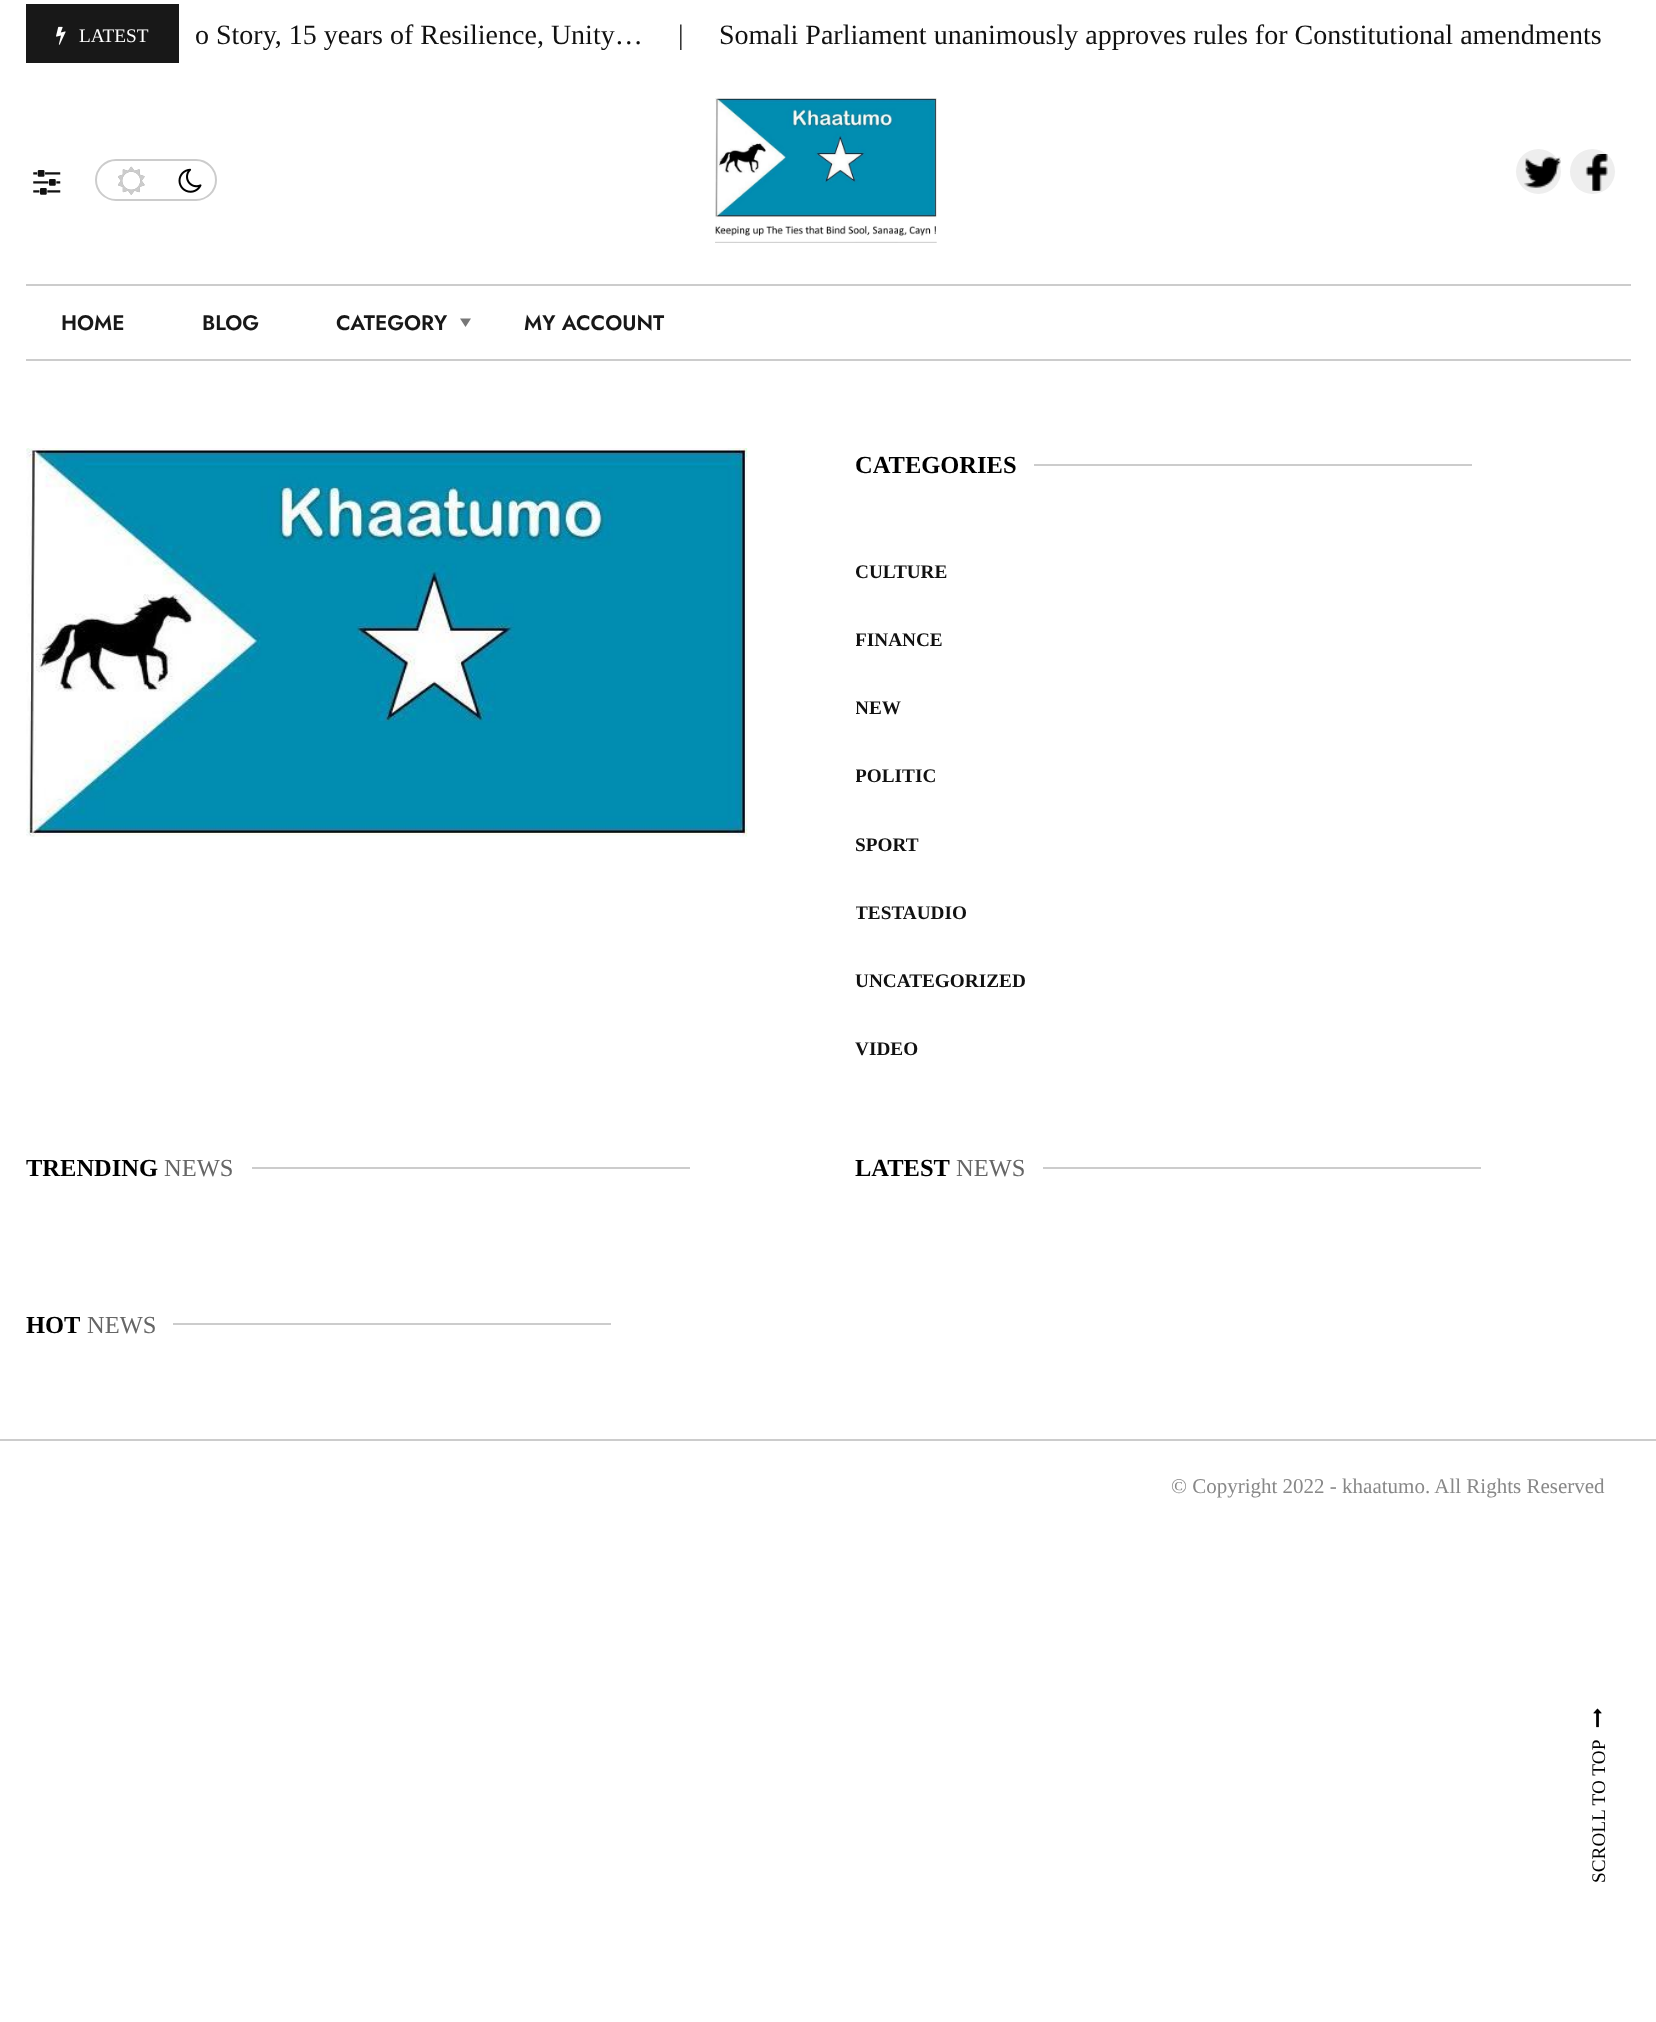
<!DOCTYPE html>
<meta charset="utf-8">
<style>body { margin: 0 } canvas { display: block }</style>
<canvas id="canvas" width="1656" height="2022"></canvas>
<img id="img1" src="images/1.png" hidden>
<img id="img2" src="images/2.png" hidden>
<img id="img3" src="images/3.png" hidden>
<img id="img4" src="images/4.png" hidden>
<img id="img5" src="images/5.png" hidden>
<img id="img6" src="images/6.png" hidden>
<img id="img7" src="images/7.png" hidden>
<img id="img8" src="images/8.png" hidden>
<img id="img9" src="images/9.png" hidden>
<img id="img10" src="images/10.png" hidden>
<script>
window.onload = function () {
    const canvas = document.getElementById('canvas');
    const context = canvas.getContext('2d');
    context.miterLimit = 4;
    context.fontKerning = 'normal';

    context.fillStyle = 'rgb(255, 255, 255)';
    context.fillRect(0, 0, 1656, 2022);
    context.fillStyle = 'rgb(24, 24, 24)';
    context.fillRect(26, 4, 153, 59);
    context.drawImage(document.getElementById('img1'), 56, 26, 10, 19);
    context.drawImage(document.getElementById('img2'), 33, 170, 28, 25);
    context.beginPath();
    context.roundRect(96, 160, 120, 40, 20);
    context.strokeStyle = 'rgb(204, 204, 204)';
    context.lineWidth = 2;
    context.stroke();
    context.drawImage(document.getElementById('img3'), 118, 166, 27, 29);
    context.drawImage(document.getElementById('img4'), 178, 168, 24, 25);
    context.drawImage(document.getElementById('img5'), 118, 166, 27, 29);
    context.drawImage(document.getElementById('img6'), 715, 98, 222, 145);
    context.fillStyle = 'rgb(238, 238, 238)';
    context.beginPath();
    context.arc(1538.5, 171.5, 22.5, 0, 2 * Math.PI);
    context.fill();
    context.drawImage(document.getElementById('img7'), 1524, 156, 37, 32);
    context.beginPath();
    context.arc(1592.5, 171.5, 22.5, 0, 2 * Math.PI);
    context.fill();
    context.drawImage(document.getElementById('img8'), 1585, 154, 23, 37);
    context.fillStyle = 'rgb(204, 204, 204)';
    context.fillRect(26, 284, 1605, 2);
    context.fillRect(26, 359, 1605, 2);
    context.fillStyle = 'rgb(119, 119, 119)';
    context.beginPath();
    context.moveTo(460, 318.5);
    context.lineTo(471, 318.5);
    context.lineTo(465.5, 327);
    context.closePath();
    context.fill();
    context.fillStyle = 'rgb(204, 204, 204)';
    context.fillRect(0, 1439, 1656, 2);
    context.drawImage(document.getElementById('img9'), 26, 448, 722, 389);
    context.fillRect(1034, 464, 438, 2);
    context.fillRect(252, 1167, 438, 2);
    context.fillRect(1043, 1167, 438, 2);
    context.fillRect(173, 1323, 438, 2);
    context.drawImage(document.getElementById('img10'), 1593, 1708, 9, 20);
    context.font = '19.25px Liberation Serif';
    context.fillStyle = 'rgb(255, 255, 255)';
    context.fillText('LATEST', 79, 42);
    context.font = '28px Liberation Serif';
    context.fillStyle = 'rgb(17, 17, 17)';
    context.fillText('o Story, 15 years of Resilience, Unity…', 195, 44);
    context.fillStyle = 'rgb(24, 24, 24)';
    context.fillText('|', 678, 44);
    context.fillStyle = 'rgb(17, 17, 17)';
    context.fillText('Somali Parliament unanimously approves rules for Constitutional amendments', 719, 44);
    context.font = '600 21px Jost';
    context.fillStyle = 'rgb(24, 24, 24)';
    context.fillText('HOME', 61, 330);
    context.fillText('BLOG', 202, 330);
    context.fillText('CATEGORY', 336, 330);
    context.fillText('MY ACCOUNT', 524, 330);
    context.font = 'bold 24.5px Liberation Serif';
    context.fillStyle = 'rgb(0, 0, 0)';
    context.fillText('CATEGORIES', 855, 473);
    context.save();
    context.beginPath();
    context.rect(856, 448, 775, 634);
    context.clip();
    context.font = 'bold 19.25px Liberation Serif';
    context.fillStyle = 'rgb(17, 17, 17)';
    context.fillText('CULTURE', 855, 578);
    context.fillText('FINANCE', 855, 646);
    context.fillText('NEW', 855, 714);
    context.fillText('POLITIC', 855, 782);
    context.fillText('SPORT', 855, 851);
    context.fillText('TESTAUDIO', 855, 919);
    context.restore();
    context.font = 'bold 19.25px Liberation Serif';
    context.fillStyle = 'rgb(17, 17, 17)';
    context.fillText('UNCATEGORIZED', 855, 987);
    context.fillText('VIDEO', 855, 1055);
    context.font = 'bold 24.5px Liberation Serif';
    context.fillStyle = 'rgb(0, 0, 0)';
    context.fillText('TRENDING', 26, 1176);
    context.font = '24.5px Liberation Serif';
    context.fillStyle = 'rgb(102, 102, 102)';
    context.fillText('NEWS', 164, 1176);
    context.font = 'bold 24.5px Liberation Serif';
    context.fillStyle = 'rgb(0, 0, 0)';
    context.fillText('LATEST', 855, 1176);
    context.font = '24.5px Liberation Serif';
    context.fillStyle = 'rgb(102, 102, 102)';
    context.fillText('NEWS', 956, 1176);
    context.font = 'bold 24.5px Liberation Serif';
    context.fillStyle = 'rgb(0, 0, 0)';
    context.fillText('HOT', 26, 1333);
    context.font = '24.5px Liberation Serif';
    context.fillStyle = 'rgb(102, 102, 102)';
    context.fillText('NEWS', 87, 1333);
    context.font = '19.25px Liberation Serif';
    context.fillStyle = 'rgb(0, 0, 0)';
    context.save();
    context.translate(1605, 1883);
    context.rotate(-90 * Math.PI / 180);
    context.fillText('SCROLL TO TOP', 0, 0);
    context.restore();
    context.font = '21px Liberation Serif';
    context.fillStyle = 'rgb(136, 136, 136)';
    context.fillText('© Copyright 2022 - khaatumo. All Rights Reserved', 1171, 1493);
};
</script>
